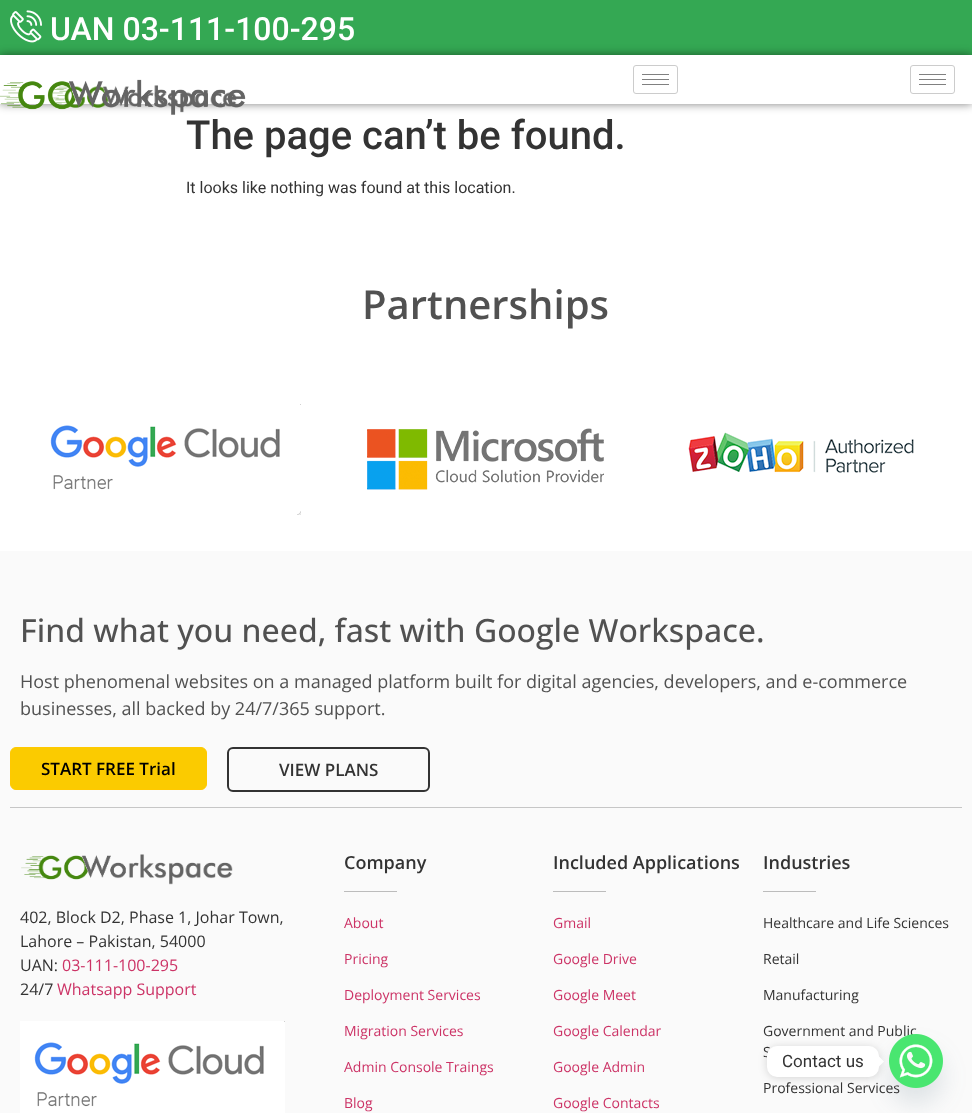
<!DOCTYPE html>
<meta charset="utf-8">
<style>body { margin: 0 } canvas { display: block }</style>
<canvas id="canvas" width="972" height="1113"></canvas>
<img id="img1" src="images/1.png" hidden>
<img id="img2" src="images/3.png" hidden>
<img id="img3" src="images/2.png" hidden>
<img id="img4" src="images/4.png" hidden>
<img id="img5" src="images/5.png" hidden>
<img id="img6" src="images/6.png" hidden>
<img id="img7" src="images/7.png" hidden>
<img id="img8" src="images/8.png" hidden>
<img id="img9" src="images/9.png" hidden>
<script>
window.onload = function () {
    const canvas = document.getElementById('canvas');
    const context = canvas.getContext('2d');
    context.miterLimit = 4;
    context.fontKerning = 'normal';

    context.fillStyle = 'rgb(255, 255, 255)';
    context.fillRect(0, 0, 972, 1113);
    context.fillStyle = 'rgb(52, 168, 83)';
    context.fillRect(0, 0, 972, 55);
    context.drawImage(document.getElementById('img1'), 10, 10, 32, 33);
    context.save();
    context.beginPath();
    context.moveTo(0, 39);
    context.lineTo(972, 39);
    context.lineTo(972, 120);
    context.lineTo(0, 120);
    context.closePath();
    context.moveTo(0, 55);
    context.lineTo(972, 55);
    context.lineTo(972, 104);
    context.lineTo(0, 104);
    context.closePath();
    context.clip('evenodd');
    context.fillStyle = 'rgba(0, 0, 0, 0.5)';
    context.filter = 'blur(5px)';
    context.beginPath();
    context.rect(0, 55, 972, 49);
    context.fill();
    context.filter = 'none';
    context.restore();
    context.drawImage(document.getElementById('img2'), 48, 85, 189, 28);
    context.drawImage(document.getElementById('img3'), 0, 79, 246, 36);
    context.beginPath();
    context.roundRect(633.5, 65.5, 44, 28, 2.5);
    context.strokeStyle = 'rgb(204, 204, 204)';
    context.stroke();
    context.fillStyle = 'rgb(128, 128, 128)';
    context.fillRect(642, 74, 27, 1);
    context.fillRect(642, 79, 27, 1);
    context.fillRect(642, 84, 27, 1);
    context.beginPath();
    context.roundRect(910.5, 65.5, 44, 28, 2.5);
    context.stroke();
    context.fillRect(919, 74, 27, 1);
    context.fillRect(919, 79, 27, 1);
    context.fillRect(919, 84, 27, 1);
    context.drawImage(document.getElementById('img4'), 50, 404, 251, 111);
    context.drawImage(document.getElementById('img5'), 367, 428, 237, 62);
    context.drawImage(document.getElementById('img6'), 688, 432, 226, 41);
    context.fillStyle = 'rgb(250, 250, 250)';
    context.fillRect(0, 551, 972, 562);
    context.fillStyle = 'rgb(251, 203, 0)';
    context.beginPath();
    context.roundRect(10.5, 747.5, 196, 42, 5.5);
    context.fill();
    context.strokeStyle = 'rgb(255, 201, 0)';
    context.stroke();
    context.beginPath();
    context.roundRect(228, 748, 201, 43, 5);
    context.strokeStyle = 'rgb(51, 51, 51)';
    context.lineWidth = 2;
    context.stroke();
    context.fillStyle = 'rgb(198, 198, 198)';
    context.fillRect(10, 807, 952, 1);
    context.drawImage(document.getElementById('img7'), 21, 854, 212, 31);
    context.drawImage(document.getElementById('img8'), 20, 1021, 265, 92);
    context.fillStyle = 'rgb(188, 188, 188)';
    context.fillRect(344, 891, 53, 1);
    context.fillRect(553, 891, 53, 1);
    context.fillRect(763, 891, 53, 1);
    context.fillStyle = 'rgba(73, 104, 126, 0.16)';
    context.filter = 'blur(12px)';
    context.beginPath();
    context.roundRect(889, 1050, 54, 54, 27);
    context.fill();
    context.filter = 'none';
    context.font = '500 32px Roboto';
    context.fillStyle = 'rgb(255, 255, 255)';
    context.fillText('UAN 03-111-100-295', 50, 40);
    context.font = '500 40px Roboto';
    context.fillStyle = 'rgb(51, 51, 51)';
    context.fillText('The page can’t be found.', 186, 149);
    context.font = '16px Roboto';
    context.fillText('It looks like nothing was found at this location.', 186, 193);
    context.font = '600 40px Open Sans';
    context.fillStyle = 'rgb(81, 81, 81)';
    context.fillText('Partnerships', 362, 319);
    context.font = '500 32px Open Sans';
    context.fillText('Find what you need, fast with Google Workspace.', 20, 642);
    context.font = '18px Open Sans';
    context.fillText('Host phenomenal websites on a managed platform built for digital agencies, developers, and e-commerce', 20, 688);
    context.fillText('businesses, all backed by 24/7/365 support.', 20, 715);
    context.font = '600 17px Open Sans';
    context.fillStyle = 'rgb(0, 0, 0)';
    context.fillText('START FREE Trial', 41, 775);
    context.fillStyle = 'rgb(51, 51, 51)';
    context.fillText('VIEW PLANS', 279, 776);
    context.font = '16px Open Sans';
    context.fillText('402, Block D2, Phase 1, Johar Town,', 20, 923);
    context.fillText('Lahore – Pakistan, 54000', 20, 947);
    context.fillText('UAN:', 20, 971);
    context.fillStyle = 'rgb(204, 51, 102)';
    context.fillText('03-111-100-295', 62, 971);
    context.fillStyle = 'rgb(51, 51, 51)';
    context.fillText('24/7', 20, 995);
    context.fillStyle = 'rgb(204, 51, 102)';
    context.fillText('Whatsapp Support', 57, 995);
    context.font = '600 18px Open Sans';
    context.fillStyle = 'rgb(51, 51, 51)';
    context.fillText('Company', 344, 869);
    context.font = '14px Open Sans';
    context.fillStyle = 'rgb(204, 51, 102)';
    context.fillText('About', 344, 928);
    context.fillText('Pricing', 344, 964);
    context.fillText('Deployment Services', 344, 1000);
    context.fillText('Migration Services', 344, 1036);
    context.fillText('Admin Console Traings', 344, 1072);
    context.fillText('Blog', 344, 1108);
    context.font = '600 18px Open Sans';
    context.fillStyle = 'rgb(51, 51, 51)';
    context.fillText('Included Applications', 553, 869);
    context.font = '14px Open Sans';
    context.fillStyle = 'rgb(204, 51, 102)';
    context.fillText('Gmail', 553, 928);
    context.fillText('Google Drive', 553, 964);
    context.fillText('Google Meet', 553, 1000);
    context.fillText('Google Calendar', 553, 1036);
    context.fillText('Google Admin', 553, 1072);
    context.fillText('Google Contacts', 553, 1108);
    context.font = '600 18px Open Sans';
    context.fillStyle = 'rgb(51, 51, 51)';
    context.fillText('Industries', 763, 869);
    context.font = '14px Open Sans';
    context.fillText('Healthcare and Life Sciences', 763, 928);
    context.fillText('Retail', 763, 964);
    context.fillText('Manufacturing', 763, 1000);
    context.fillText('Government and Public', 763, 1036);
    context.fillText('S', 763, 1057);
    context.fillText('Professional Services', 763, 1093);
    context.drawImage(document.getElementById('img9'), 889, 1034, 54, 54);
    context.fillStyle = 'rgba(0, 0, 0, 0.15)';
    context.filter = 'blur(4px)';
    context.beginPath();
    context.roundRect(767, 1047, 112, 31, 10);
    context.fill();
    context.filter = 'none';
    context.fillStyle = 'rgb(255, 255, 255)';
    context.beginPath();
    context.moveTo(879, 1066.5);
    context.lineTo(879, 1056.5);
    context.lineTo(884, 1061.5);
    context.closePath();
    context.fill();
    context.beginPath();
    context.roundRect(767, 1046, 112, 31, 10);
    context.fill();
    context.font = '17px Roboto';
    context.fillStyle = 'rgb(51, 51, 51)';
    context.fillText('Contact us', 782, 1067);
};
</script>
